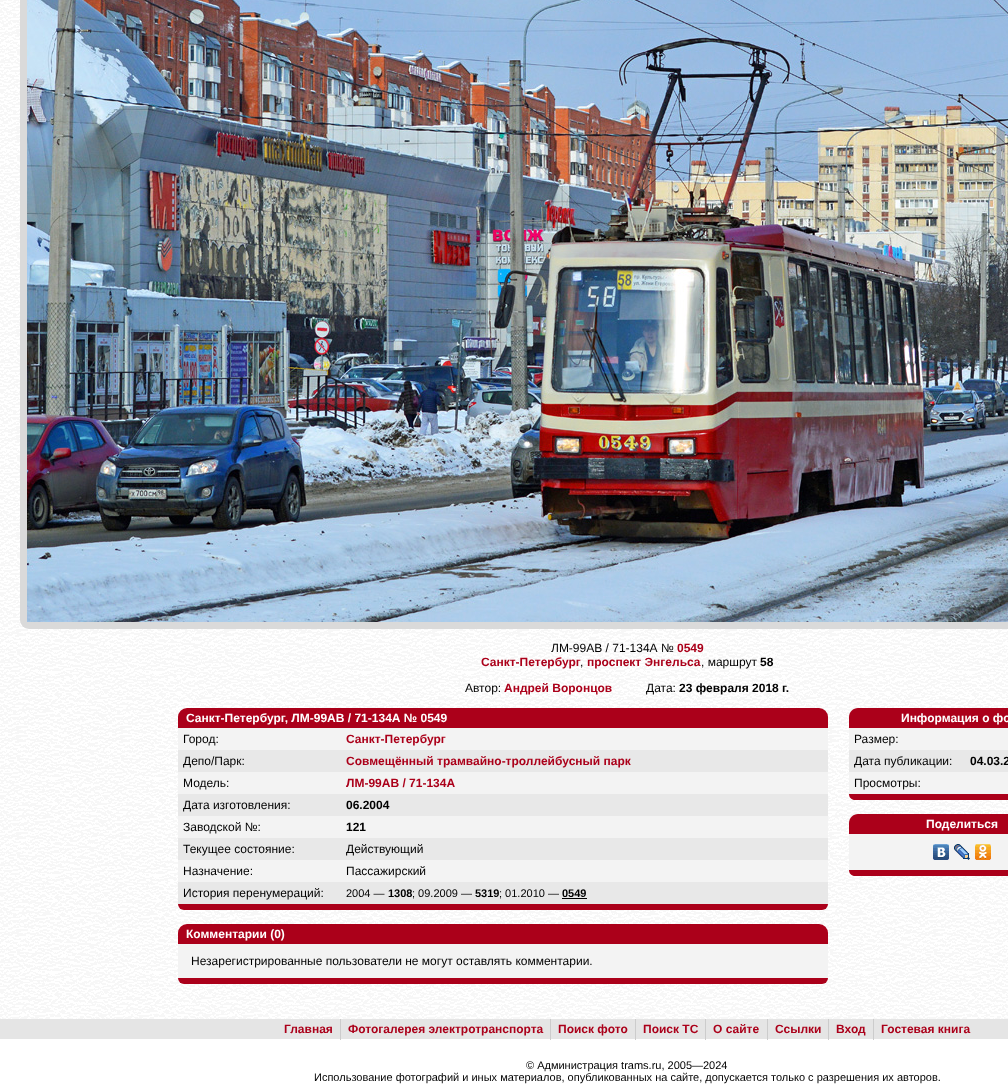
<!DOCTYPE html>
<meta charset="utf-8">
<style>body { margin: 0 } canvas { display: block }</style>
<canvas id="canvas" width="1008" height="1087"></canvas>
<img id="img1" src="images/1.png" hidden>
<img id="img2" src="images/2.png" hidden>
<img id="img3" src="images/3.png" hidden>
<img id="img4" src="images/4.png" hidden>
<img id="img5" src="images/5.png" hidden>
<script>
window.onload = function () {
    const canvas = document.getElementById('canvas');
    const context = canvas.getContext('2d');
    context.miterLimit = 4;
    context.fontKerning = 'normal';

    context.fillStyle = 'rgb(255, 255, 255)';
    context.fillRect(0, 0, 1008, 1087);
    context.drawImage(document.getElementById('img1'), 0, 0, 1008, 1019);
    context.fillStyle = 'rgb(218, 218, 218)';
    context.beginPath();
    context.roundRect(20, -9, 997, 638, 9);
    context.fill();
    context.drawImage(document.getElementById('img2'), 27, 0, 981, 622);
    context.fillStyle = 'rgb(171, 0, 26)';
    context.beginPath();
    context.roundRect(178, 708, 650, 20, [9, 9, 0, 0]);
    context.fill();
    context.fillStyle = 'rgb(243, 243, 243)';
    context.fillRect(178, 728, 650, 22);
    context.fillStyle = 'rgb(232, 232, 232)';
    context.fillRect(178, 750, 650, 22);
    context.fillStyle = 'rgb(243, 243, 243)';
    context.fillRect(178, 772, 650, 22);
    context.fillStyle = 'rgb(232, 232, 232)';
    context.fillRect(178, 794, 650, 22);
    context.fillStyle = 'rgb(243, 243, 243)';
    context.fillRect(178, 816, 650, 22);
    context.fillStyle = 'rgb(232, 232, 232)';
    context.fillRect(178, 838, 650, 22);
    context.fillStyle = 'rgb(243, 243, 243)';
    context.fillRect(178, 860, 650, 22);
    context.fillStyle = 'rgb(232, 232, 232)';
    context.fillRect(178, 882, 650, 22);
    context.fillStyle = 'rgb(0, 0, 0)';
    context.fillRect(562, 898, 25, 1);
    context.fillStyle = 'rgb(171, 0, 26)';
    context.beginPath();
    context.roundRect(178, 904, 650, 6, [0, 0, 6, 6]);
    context.fill();
    context.beginPath();
    context.roundRect(178, 924, 650, 20, [9, 9, 0, 0]);
    context.fill();
    context.fillStyle = 'rgb(243, 243, 243)';
    context.fillRect(178, 944, 650, 34);
    context.fillStyle = 'rgb(171, 0, 26)';
    context.beginPath();
    context.roundRect(178, 978, 650, 6, [0, 0, 6, 6]);
    context.fill();
    context.beginPath();
    context.moveTo(858, 708);
    context.lineTo(1008, 708);
    context.bezierCurveTo(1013, 708, 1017, 712, 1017, 717);
    context.lineTo(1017, 728);
    context.lineTo(849, 728);
    context.lineTo(849, 717);
    context.bezierCurveTo(849, 712, 853, 708, 858, 708);
    context.closePath();
    context.fill();
    context.fillStyle = 'rgb(243, 243, 243)';
    context.fillRect(849, 728, 159, 22);
    context.fillStyle = 'rgb(232, 232, 232)';
    context.fillRect(849, 750, 159, 22);
    context.fillStyle = 'rgb(243, 243, 243)';
    context.fillRect(849, 772, 159, 22);
    context.fillStyle = 'rgb(171, 0, 26)';
    context.beginPath();
    context.moveTo(849, 794);
    context.lineTo(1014, 794);
    context.bezierCurveTo(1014, 797.5, 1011.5, 800, 1008, 800);
    context.lineTo(855, 800);
    context.bezierCurveTo(851.5, 800, 849, 797.5, 849, 794);
    context.closePath();
    context.fill();
    context.beginPath();
    context.moveTo(858, 814);
    context.lineTo(1008, 814);
    context.bezierCurveTo(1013, 814, 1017, 818, 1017, 823);
    context.lineTo(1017, 834);
    context.lineTo(849, 834);
    context.lineTo(849, 823);
    context.bezierCurveTo(849, 818, 853, 814, 858, 814);
    context.closePath();
    context.fill();
    context.fillStyle = 'rgb(243, 243, 243)';
    context.fillRect(849, 834, 159, 36);
    context.drawImage(document.getElementById('img3'), 933, 844, 16, 16);
    context.drawImage(document.getElementById('img4'), 954, 844, 16, 16);
    context.drawImage(document.getElementById('img5'), 975, 844, 16, 16);
    context.fillStyle = 'rgb(171, 0, 26)';
    context.beginPath();
    context.moveTo(849, 870);
    context.lineTo(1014, 870);
    context.bezierCurveTo(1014, 873.5, 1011.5, 876, 1008, 876);
    context.lineTo(855, 876);
    context.bezierCurveTo(851.5, 876, 849, 873.5, 849, 870);
    context.closePath();
    context.fill();
    context.fillStyle = 'rgb(229, 229, 229)';
    context.fillRect(0, 1019, 1008, 20);
    context.fillStyle = 'rgb(204, 204, 204)';
    context.fillRect(340, 1019, 1, 21);
    context.fillRect(550, 1019, 1, 21);
    context.fillRect(635, 1019, 1, 21);
    context.fillRect(705, 1019, 1, 21);
    context.fillRect(767, 1019, 1, 21);
    context.fillRect(828, 1019, 1, 21);
    context.fillRect(873, 1019, 1, 21);
    context.font = '12px Liberation Sans';
    context.fillStyle = 'rgb(0, 0, 0)';
    context.fillText('ЛМ-99АВ / 71-134А №', 551, 652);
    context.font = 'bold 12px Liberation Sans';
    context.fillStyle = 'rgb(171, 0, 26)';
    context.fillText('0549', 677, 652);
    context.fillText('Санкт-Петербург', 481, 666);
    context.font = '12px Liberation Sans';
    context.fillStyle = 'rgb(0, 0, 0)';
    context.fillText(',', 580, 666);
    context.font = 'bold 12px Liberation Sans';
    context.fillStyle = 'rgb(171, 0, 26)';
    context.fillText('проспект Энгельса', 587, 666);
    context.font = '12px Liberation Sans';
    context.fillStyle = 'rgb(0, 0, 0)';
    context.fillText(', маршрут', 701, 666);
    context.font = 'bold 12px Liberation Sans';
    context.fillText('58', 760, 666);
    context.font = '12px Liberation Sans';
    context.fillText('Автор:', 465, 692);
    context.font = 'bold 12px Liberation Sans';
    context.fillStyle = 'rgb(171, 0, 26)';
    context.fillText('Андрей Воронцов', 504, 692);
    context.font = '12px Liberation Sans';
    context.fillStyle = 'rgb(0, 0, 0)';
    context.fillText('Дата:', 646, 692);
    context.font = 'bold 12px Liberation Sans';
    context.fillText('23 февраля 2018 г.', 679, 692);
    context.fillStyle = 'rgb(255, 255, 255)';
    context.fillText('Санкт-Петербург, ЛМ-99АВ / 71-134А № 0549', 186, 722);
    context.font = '12px Liberation Sans';
    context.fillStyle = 'rgb(0, 0, 0)';
    context.fillText('Город:', 183, 743);
    context.font = 'bold 12px Liberation Sans';
    context.fillStyle = 'rgb(171, 0, 26)';
    context.fillText('Санкт-Петербург', 346, 743);
    context.font = '12px Liberation Sans';
    context.fillStyle = 'rgb(0, 0, 0)';
    context.fillText('Депо/Парк:', 183, 765);
    context.font = 'bold 12px Liberation Sans';
    context.fillStyle = 'rgb(171, 0, 26)';
    context.fillText('Совмещённый трамвайно-троллейбусный парк', 346, 765);
    context.font = '12px Liberation Sans';
    context.fillStyle = 'rgb(0, 0, 0)';
    context.fillText('Модель:', 183, 787);
    context.font = 'bold 12px Liberation Sans';
    context.fillStyle = 'rgb(171, 0, 26)';
    context.fillText('ЛМ-99АВ / 71-134А', 346, 787);
    context.font = '12px Liberation Sans';
    context.fillStyle = 'rgb(0, 0, 0)';
    context.fillText('Дата изготовления:', 183, 809);
    context.font = 'bold 12px Liberation Sans';
    context.fillText('06.2004', 346, 809);
    context.font = '12px Liberation Sans';
    context.fillText('Заводской №:', 183, 831);
    context.font = 'bold 12px Liberation Sans';
    context.fillText('121', 346, 831);
    context.font = '12px Liberation Sans';
    context.fillText('Текущее состояние:', 183, 853);
    context.fillText('Действующий', 346, 853);
    context.fillText('Назначение:', 183, 875);
    context.fillText('Пассажирский', 346, 875);
    context.fillText('История перенумераций:', 183, 897);
    context.font = '11px Liberation Sans';
    context.fillText('2004 —', 346, 897);
    context.font = 'bold 11px Liberation Sans';
    context.fillText('1308', 388, 897);
    context.font = '11px Liberation Sans';
    context.fillText('; 09.2009 —', 412, 897);
    context.font = 'bold 11px Liberation Sans';
    context.fillText('5319', 475, 897);
    context.font = '11px Liberation Sans';
    context.fillText('; 01.2010 —', 499, 897);
    context.font = 'bold 11px Liberation Sans';
    context.fillText('0549', 562, 897);
    context.font = 'bold 12px Liberation Sans';
    context.fillStyle = 'rgb(255, 255, 255)';
    context.fillText('Комментарии (0)', 186, 938);
    context.font = '12px Liberation Sans';
    context.fillStyle = 'rgb(0, 0, 0)';
    context.fillText('Незарегистрированные пользователи не могут оставлять комментарии.', 191, 965);
    context.font = 'bold 12px Liberation Sans';
    context.fillStyle = 'rgb(255, 255, 255)';
    context.fillText('Информация о фо', 901, 722);
    context.font = '12px Liberation Sans';
    context.fillStyle = 'rgb(0, 0, 0)';
    context.fillText('Размер:', 854, 743);
    context.fillText('Дата публикации:', 854, 765);
    context.font = 'bold 12px Liberation Sans';
    context.fillText('04.03.2', 970, 765);
    context.font = '12px Liberation Sans';
    context.fillText('Просмотры:', 854, 787);
    context.font = 'bold 12px Liberation Sans';
    context.fillStyle = 'rgb(255, 255, 255)';
    context.fillText('Поделиться', 926, 828);
    context.fillStyle = 'rgb(171, 0, 26)';
    context.fillText('Главная', 284, 1033);
    context.fillText('Фотогалерея электротранспорта', 348, 1033);
    context.fillText('Поиск фото', 558, 1033);
    context.fillText('Поиск ТС', 643, 1033);
    context.fillText('О сайте', 713, 1033);
    context.fillText('Ссылки', 775, 1033);
    context.fillText('Вход', 836, 1033);
    context.fillText('Гостевая книга', 881, 1033);
    context.font = '11px Liberation Sans';
    context.fillStyle = 'rgb(0, 0, 0)';
    context.fillText('© Администрация trams.ru, 2005—2024', 526, 1069);
    context.fillText('Использование фотографий и иных материалов, опубликованных на сайте, допускается только с разрешения их авторов.', 314, 1081);
};
</script>
